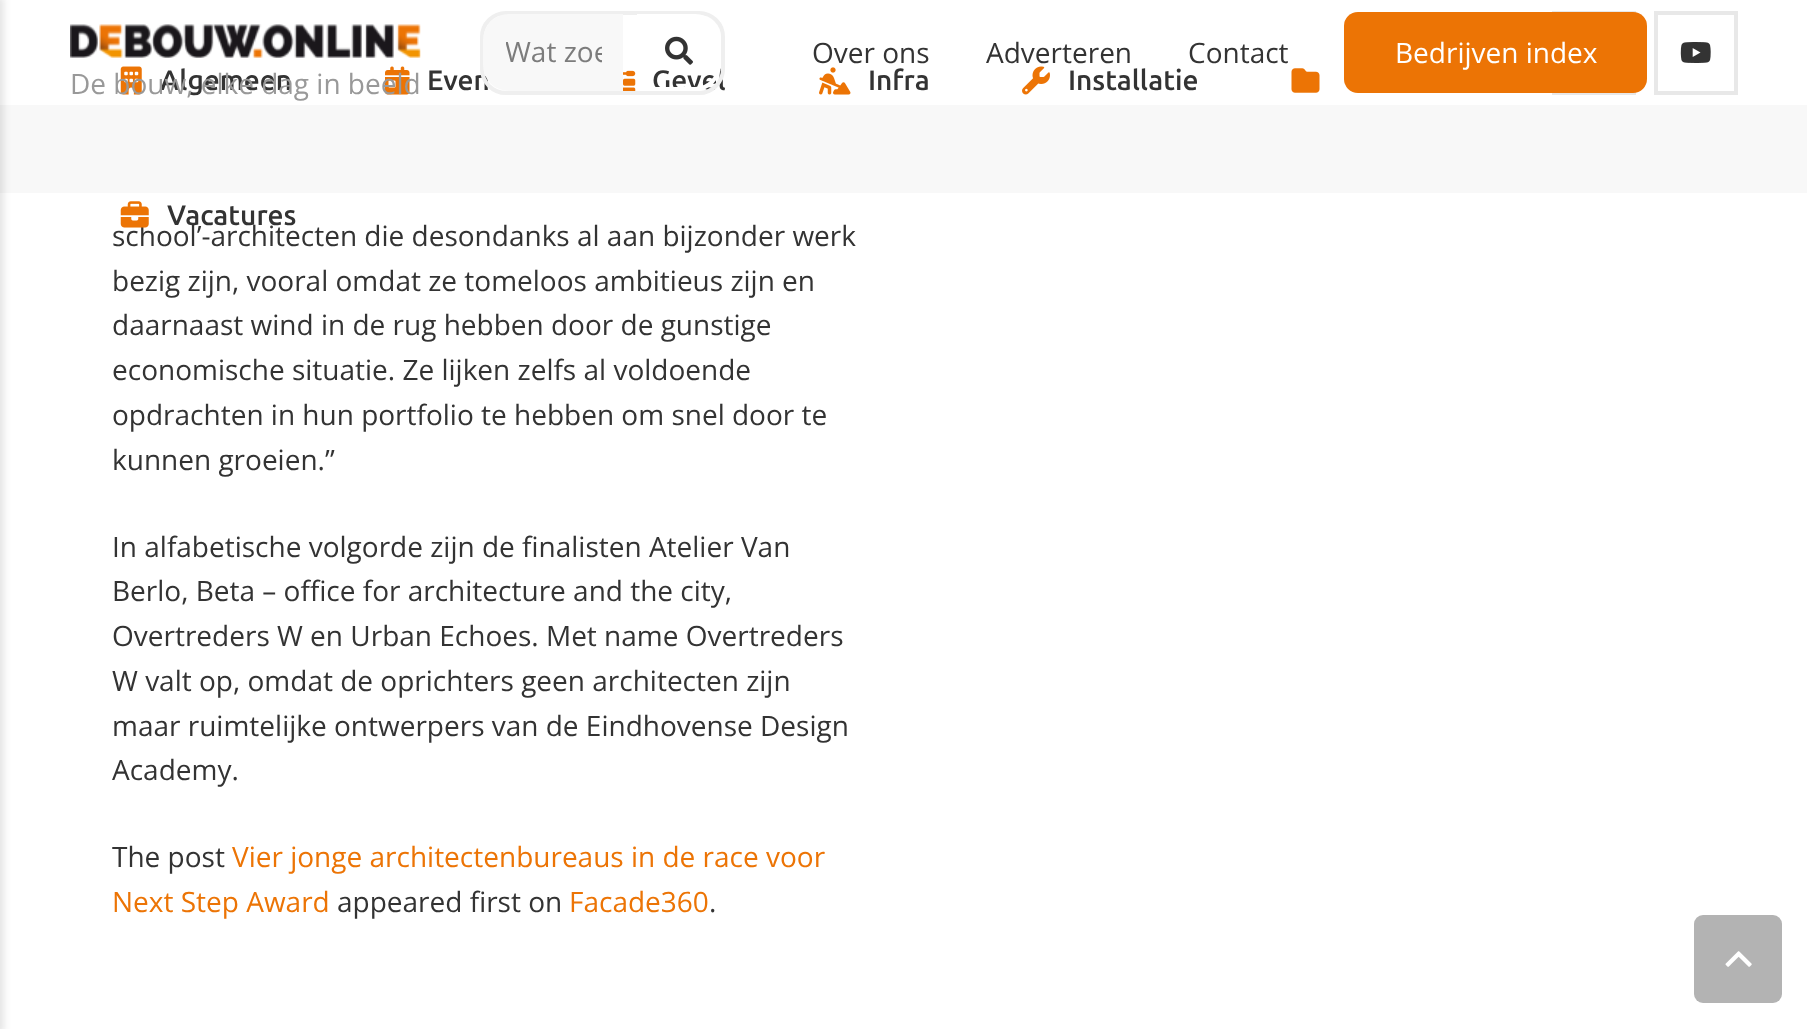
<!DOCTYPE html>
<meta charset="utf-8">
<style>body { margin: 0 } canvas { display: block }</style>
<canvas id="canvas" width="1807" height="1029"></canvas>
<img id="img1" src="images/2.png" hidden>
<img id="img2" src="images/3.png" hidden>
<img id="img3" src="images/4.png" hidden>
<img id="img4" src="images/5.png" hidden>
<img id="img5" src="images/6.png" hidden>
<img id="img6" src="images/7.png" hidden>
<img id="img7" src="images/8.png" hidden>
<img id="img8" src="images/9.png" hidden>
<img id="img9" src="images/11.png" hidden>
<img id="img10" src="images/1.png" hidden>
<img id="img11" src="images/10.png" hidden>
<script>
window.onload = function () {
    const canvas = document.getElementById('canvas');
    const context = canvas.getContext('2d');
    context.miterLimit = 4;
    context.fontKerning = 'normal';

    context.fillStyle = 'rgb(255, 255, 255)';
    context.fillRect(0, 0, 1807, 1029);
    context.fillStyle = 'rgb(248, 248, 248)';
    context.fillRect(0, 105, 1807, 88);
    context.fillStyle = 'rgba(0, 0, 0, 0.1)';
    context.filter = 'blur(3.5px)';
    context.beginPath();
    context.rect(-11, -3, 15, 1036);
    context.fill();
    context.filter = 'none';
    context.strokeStyle = 'rgb(232, 232, 232)';
    context.lineWidth = 4;
    context.strokeRect(1554, 13, 80, 80);
    context.fillStyle = 'rgb(236, 116, 5)';
    context.beginPath();
    context.roundRect(1344, 12, 303, 81, 14);
    context.fill();
    context.strokeRect(1656, 13, 80, 80);
    context.drawImage(document.getElementById('img1'), 1680, 42, 31, 21);
    context.drawImage(document.getElementById('img2'), 70, 24, 351, 34);
    context.drawImage(document.getElementById('img3'), 120, 66, 22, 29);
    context.drawImage(document.getElementById('img4'), 385, 66, 25, 29);
    context.drawImage(document.getElementById('img5'), 623, 70, 13, 21);
    context.drawImage(document.getElementById('img6'), 819, 67, 32, 28);
    context.drawImage(document.getElementById('img7'), 1022, 66, 28, 29);
    context.drawImage(document.getElementById('img8'), 1291, 68, 29, 25);
    context.fillStyle = 'rgb(179, 179, 179)';
    context.beginPath();
    context.roundRect(1694, 915, 88, 88, 9);
    context.fill();
    context.drawImage(document.getElementById('img9'), 1725, 951, 27, 16);
    context.font = '28px Open Sans';
    context.fillStyle = 'rgb(51, 51, 51)';
    context.fillText('Over ons', 812, 63);
    context.fillText('Adverteren', 986, 63);
    context.fillText('Contact', 1188, 63);
    context.fillStyle = 'rgb(255, 255, 255)';
    context.fillText('Bedrijven index', 1395, 63);
    context.font = '600 28px Ubuntu Sans';
    context.fillStyle = 'rgb(51, 51, 51)';
    context.fillText('Algemeen', 160, 90);
    context.font = '28px Open Sans';
    context.fillStyle = 'rgb(153, 153, 153)';
    context.fillText('De bouw, elke dag in beeld', 70, 94);
    context.font = '600 28px Ubuntu Sans';
    context.fillStyle = 'rgb(51, 51, 51)';
    context.fillText('Even', 427, 90);
    context.fillText('Gevel', 652, 90);
    context.beginPath();
    context.roundRect(482, 13, 241, 80, 24);
    context.strokeStyle = 'rgb(239, 239, 239)';
    context.stroke();
    context.drawImage(document.getElementById('img10'), 665, 36, 28, 29);
    context.beginPath();
    context.roundRect(639, 16, 80, 73, [0, 24, 24, 0]);
    context.strokeStyle = 'rgb(255, 255, 255)';
    context.stroke();
    context.fillStyle = 'rgb(248, 248, 248)';
    context.beginPath();
    context.roundRect(483, 14, 140, 77, [26, 0, 0, 26]);
    context.fill();
    context.save();
    context.beginPath();
    context.rect(506, 33, 96, 39);
    context.clip();
    context.font = '28px Open Sans';
    context.fillStyle = 'rgb(124, 124, 124)';
    context.fillText('Wat zoe', 505, 62);
    context.restore();
    context.fillStyle = 'rgb(51, 51, 51)';
    context.fillText('Infra', 868, 90);
    context.fillText('Installatie', 1068, 90);
    context.fillText('Vacatures', 167, 225);
    context.font = '28px Open Sans';
    context.fillText('school’-architecten die desondanks al aan bijzonder werk', 112, 246);
    context.drawImage(document.getElementById('img11'), 120, 201, 29, 27);
    context.fillText('bezig zijn, vooral omdat ze tomeloos ambitieus zijn en', 112, 291);
    context.fillText('daarnaast wind in de rug hebben door de gunstige', 112, 335);
    context.fillText('economische situatie. Ze lijken zelfs al voldoende', 112, 380);
    context.fillText('opdrachten in hun portfolio te hebben om snel door te', 112, 425);
    context.fillText('kunnen groeien.”', 112, 470);
    context.fillText('In alfabetische volgorde zijn de finalisten Atelier Van', 112, 557);
    context.fillText('Berlo, Beta – office for architecture and the city,', 112, 601);
    context.fillText('Overtreders W en Urban Echoes. Met name Overtreders', 112, 646);
    context.fillText('W valt op, omdat de oprichters geen architecten zijn', 112, 691);
    context.fillText('maar ruimtelijke ontwerpers van de Eindhovense Design', 112, 736);
    context.fillText('Academy.', 112, 780);
    context.fillText('The post', 112, 867);
    context.fillStyle = 'rgb(236, 116, 5)';
    context.fillText('Vier jonge architectenbureaus in de race voor', 232, 867);
    context.fillText('Next Step Award', 112, 912);
    context.fillStyle = 'rgb(51, 51, 51)';
    context.fillText('appeared first on', 337, 912);
    context.fillStyle = 'rgb(236, 116, 5)';
    context.fillText('Facade360', 569, 912);
    context.fillStyle = 'rgb(51, 51, 51)';
    context.fillText('.', 709, 912);
};
</script>
